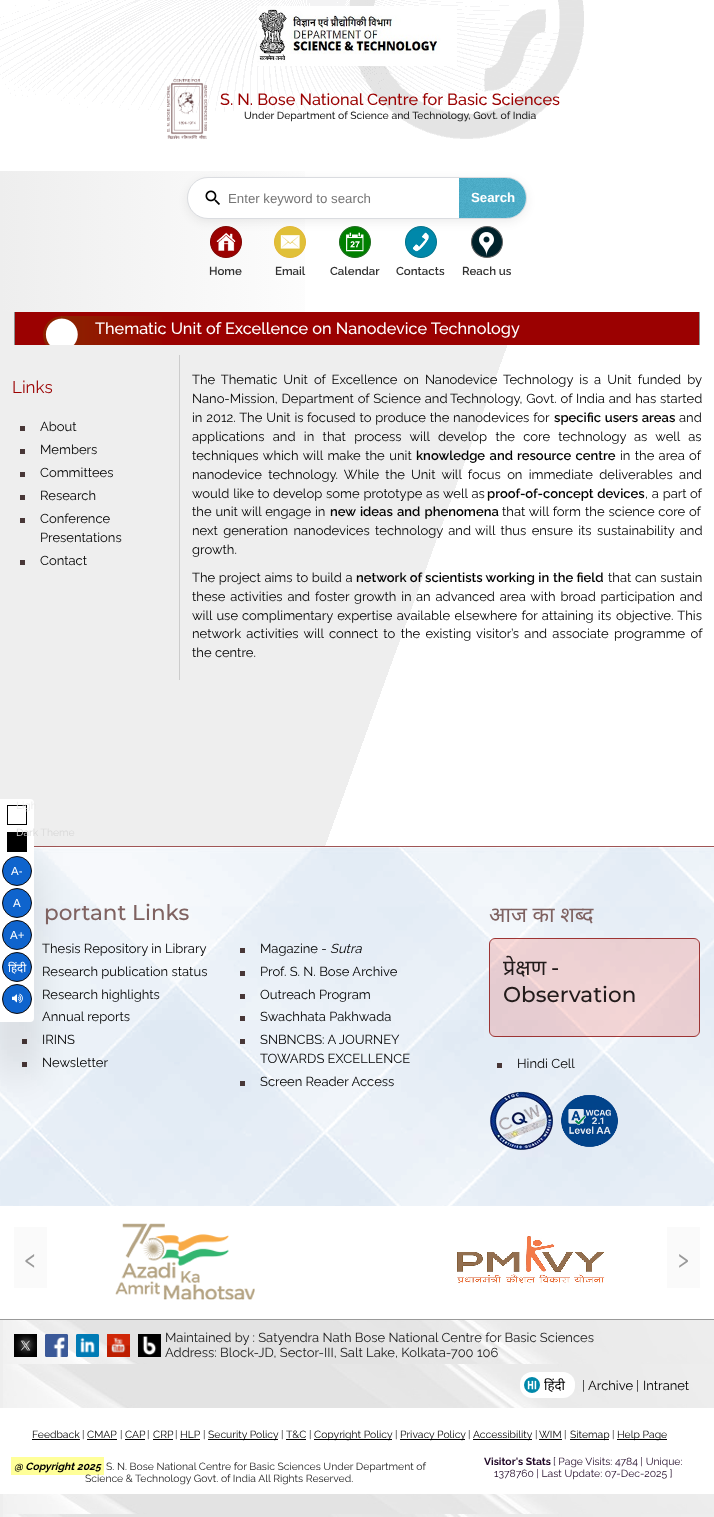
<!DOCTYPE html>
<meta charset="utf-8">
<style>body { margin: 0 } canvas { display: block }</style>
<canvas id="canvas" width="714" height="1517"></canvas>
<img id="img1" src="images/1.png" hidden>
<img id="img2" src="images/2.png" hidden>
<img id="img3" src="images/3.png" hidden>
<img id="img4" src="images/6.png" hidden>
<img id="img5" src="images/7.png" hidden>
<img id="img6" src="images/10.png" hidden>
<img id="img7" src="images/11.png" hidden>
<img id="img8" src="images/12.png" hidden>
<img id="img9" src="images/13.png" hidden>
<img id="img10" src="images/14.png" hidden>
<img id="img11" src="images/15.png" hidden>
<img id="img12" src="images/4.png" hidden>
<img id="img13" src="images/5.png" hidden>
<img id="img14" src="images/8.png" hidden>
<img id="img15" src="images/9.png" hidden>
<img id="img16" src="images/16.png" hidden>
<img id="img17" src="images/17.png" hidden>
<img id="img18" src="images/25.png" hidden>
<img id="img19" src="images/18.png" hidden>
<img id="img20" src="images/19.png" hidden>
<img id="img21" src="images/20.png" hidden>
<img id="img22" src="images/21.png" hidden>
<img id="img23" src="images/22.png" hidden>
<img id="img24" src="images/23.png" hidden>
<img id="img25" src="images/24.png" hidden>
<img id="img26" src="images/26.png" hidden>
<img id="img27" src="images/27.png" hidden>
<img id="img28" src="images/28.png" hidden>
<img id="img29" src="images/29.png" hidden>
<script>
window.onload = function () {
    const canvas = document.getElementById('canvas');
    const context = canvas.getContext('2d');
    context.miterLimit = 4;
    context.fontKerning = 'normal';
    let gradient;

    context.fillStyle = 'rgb(255, 255, 255)';
    context.fillRect(0, 0, 714, 1517);
    gradient = context.createLinearGradient(-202, 555, 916, 962);
    gradient.addColorStop(0.5, 'rgb(238, 238, 238)');
    gradient.addColorStop(0.5, 'rgb(255, 255, 255)');
    context.fillStyle = gradient;
    context.fillRect(0, 312, 519, 1205);
    context.drawImage(document.getElementById('img1'), 0, 0, 584, 139);
    context.drawImage(document.getElementById('img2'), 257, 6, 200, 60);
    context.drawImage(document.getElementById('img3'), 167, 79, 40, 60);
    gradient = context.createLinearGradient(0, 242, 714, 241);
    gradient.addColorStop(0, 'rgb(238, 238, 238)');
    gradient.addColorStop(0.5, 'rgb(255, 255, 255)');
    context.fillStyle = gradient;
    context.fillRect(0, 171, 305, 141);
    context.drawImage(document.getElementById('img4'), 210, 226, 32, 32);
    context.drawImage(document.getElementById('img5'), 216, 232, 20, 19);
    context.drawImage(document.getElementById('img6'), 339, 226, 32, 32);
    context.drawImage(document.getElementById('img7'), 346, 232, 18, 20);
    context.drawImage(document.getElementById('img8'), 405, 226, 32, 32);
    context.drawImage(document.getElementById('img9'), 413, 232, 16, 20);
    context.drawImage(document.getElementById('img10'), 471, 226, 32, 32);
    context.drawImage(document.getElementById('img11'), 479, 232, 15, 24);
    context.fillStyle = 'rgba(31, 31, 31, 0.08)';
    context.filter = 'blur(5px)';
    context.beginPath();
    context.roundRect(187, 180, 340, 42, 21);
    context.fill();
    context.filter = 'none';
    context.fillStyle = 'rgb(255, 255, 255)';
    context.beginPath();
    context.roundRect(187.5, 177.5, 339, 41, 20.5);
    context.fill();
    context.strokeStyle = 'rgb(218, 220, 224)';
    context.stroke();
    context.drawImage(document.getElementById('img12'), 205, 190, 15, 15);
    context.drawImage(document.getElementById('img13'), 459, 178, 67, 40);
    context.drawImage(document.getElementById('img14'), 274, 226, 32, 32);
    context.drawImage(document.getElementById('img15'), 280, 235, 20, 14);
    context.fillStyle = 'rgb(155, 1, 1)';
    context.fillRect(15, 312, 684, 33);
    context.drawImage(document.getElementById('img16'), 43, 316, 119, 29);
    context.fillStyle = 'rgb(142, 146, 145)';
    context.fillRect(699, 312, 1, 33);
    context.fillRect(14, 312, 1, 33);
    context.fillStyle = 'rgb(72, 55, 55)';
    context.fillRect(20, 426, 5, 5);
    context.fillRect(20, 449, 5, 5);
    context.fillRect(20, 472, 5, 5);
    context.fillRect(20, 495, 5, 5);
    context.fillRect(20, 518, 5, 5);
    context.fillRect(20, 560, 5, 5);
    context.fillStyle = 'rgb(204, 204, 204)';
    context.fillRect(179, 355, 1, 325);
    context.drawImage(document.getElementById('img17'), 3, 1320, 711, 197);
    context.fillStyle = 'rgb(153, 153, 153)';
    context.fillRect(0, 1319, 714, 1);
    context.drawImage(document.getElementById('img18'), 0, 847, 714, 359);
    context.fillStyle = 'rgb(159, 85, 85)';
    context.fillRect(34, 846, 680, 1);
    context.fillStyle = 'rgb(72, 55, 55)';
    context.fillRect(22, 1039, 5, 5);
    context.fillRect(22, 1062, 5, 5);
    context.fillStyle = 'rgba(0, 0, 0, 0.2)';
    context.filter = 'blur(20px)';
    context.beginPath();
    context.rect(7, 866, 20, 209);
    context.fill();
    context.filter = 'none';
    context.fillStyle = 'rgb(255, 255, 255)';
    context.beginPath();
    context.roundRect(0, 799, 34, 223, [0, 4, 4, 0]);
    context.fill();
    context.strokeStyle = 'rgb(0, 0, 0)';
    context.strokeRect(7.5, 805.5, 19, 19);
    context.fillStyle = 'rgb(0, 0, 0)';
    context.fillRect(7, 832, 20, 20);
    context.fillStyle = 'rgb(15, 100, 205)';
    context.beginPath();
    context.arc(17, 871, 14.5, 0, 2 * Math.PI);
    context.fill();
    context.strokeStyle = 'rgb(14, 10, 10)';
    context.stroke();
    context.beginPath();
    context.arc(17, 903, 14.5, 0, 2 * Math.PI);
    context.fill();
    context.stroke();
    context.beginPath();
    context.arc(17, 935, 14.5, 0, 2 * Math.PI);
    context.fill();
    context.stroke();
    context.beginPath();
    context.arc(17, 967, 14.5, 0, 2 * Math.PI);
    context.fill();
    context.stroke();
    context.beginPath();
    context.arc(17, 999, 14.5, 0, 2 * Math.PI);
    context.fill();
    context.stroke();
    context.drawImage(document.getElementById('img19'), 12, 993, 11, 10);
    context.drawImage(document.getElementById('img20'), 14, 1334, 23, 23);
    context.drawImage(document.getElementById('img21'), 45, 1334, 23, 23);
    context.drawImage(document.getElementById('img22'), 76, 1334, 23, 23);
    context.drawImage(document.getElementById('img23'), 107, 1334, 23, 23);
    context.drawImage(document.getElementById('img24'), 138, 1334, 23, 23);
    context.fillStyle = 'rgb(255, 255, 255)';
    context.beginPath();
    context.roundRect(520, 1372, 55, 26, 12);
    context.fill();
    context.drawImage(document.getElementById('img25'), 524, 1377, 16, 16);
    context.fillRect(0, 1408, 714, 86);
    context.fillStyle = 'rgb(0, 0, 0)';
    context.fillRect(32, 1439, 48, 1);
    context.fillRect(87, 1439, 30, 1);
    context.fillRect(125, 1439, 20, 1);
    context.fillRect(153, 1439, 20, 1);
    context.fillRect(180, 1439, 20, 1);
    context.fillRect(208, 1439, 70, 1);
    context.fillRect(286, 1439, 20, 1);
    context.fillRect(314, 1439, 78, 1);
    context.fillRect(400, 1439, 65, 1);
    context.fillRect(473, 1439, 59, 1);
    context.fillRect(539, 1439, 23, 1);
    context.fillRect(570, 1439, 39, 1);
    context.fillRect(617, 1439, 50, 1);
    context.fillStyle = 'rgb(255, 255, 153)';
    context.fillRect(11, 1457, 93, 18);
    context.fillStyle = 'rgb(72, 55, 55)';
    context.fillRect(240, 948, 5, 5);
    context.fillRect(240, 971, 5, 5);
    context.fillRect(240, 994, 5, 5);
    context.fillRect(240, 1016, 5, 5);
    context.fillRect(240, 1039, 5, 5);
    context.fillRect(240, 1081, 5, 5);
    context.fillStyle = 'rgba(244, 67, 54, 0.19)';
    context.beginPath();
    context.roundRect(489.5, 938.5, 210, 98, 5.5);
    context.fill();
    context.strokeStyle = 'rgb(157, 52, 52)';
    context.stroke();
    context.fillStyle = 'rgb(72, 55, 55)';
    context.fillRect(497, 1063, 5, 5);
    context.drawImage(document.getElementById('img26'), 490, 1091, 63, 59);
    context.drawImage(document.getElementById('img27'), 561, 1095, 57, 52);
    context.fillStyle = 'rgb(255, 255, 255)';
    context.fillRect(0, 1206, 194, 113);
    context.drawImage(document.getElementById('img28'), 115, 1223, 140, 77);
    context.drawImage(document.getElementById('img29'), 457, 1236, 148, 48);
    context.fillStyle = 'rgb(250, 250, 250)';
    context.fillRect(14, 1227, 33, 61);
    context.fillRect(667, 1227, 33, 61);
    context.font = '500 16.25px Raleway';
    context.fillStyle = 'rgb(155, 1, 1)';
    context.fillText('S. N. Bose National Centre for Basic Sciences', 220, 105);
    context.font = '500 10.4px Raleway';
    context.fillStyle = 'rgb(26, 26, 26)';
    context.fillText('Under Department of Science and Technology, Govt. of India', 244, 119);
    context.font = '13.25px Liberation Sans';
    context.fillStyle = 'rgb(117, 117, 117)';
    context.fillText('Enter keyword to search', 228, 203);
    context.font = 'bold 13.25px Liberation Sans';
    context.fillStyle = 'rgb(255, 255, 255)';
    context.fillText('Search', 471, 202);
    context.font = '600 11.5px Raleway';
    context.fillStyle = 'rgb(51, 51, 51)';
    context.fillText('Home', 209, 275);
    context.fillText('Email', 275, 275);
    context.fillText('Calendar', 330, 275);
    context.fillText('Contacts', 396, 275);
    context.fillText('Reach us', 462, 275);
    context.font = '500 16.25px Raleway';
    context.fillStyle = 'rgb(255, 255, 255)';
    context.fillText('Thematic Unit of Excellence on Nanodevice Technology', 95, 334);
    context.font = '17px Raleway';
    context.fillStyle = 'rgb(155, 1, 1)';
    context.fillText('Links', 12, 393);
    context.font = '13px Raleway';
    context.fillStyle = 'rgb(0, 0, 0)';
    context.fillText('About', 40, 431);
    context.fillText('Members', 40, 454);
    context.fillText('Committees', 40, 477);
    context.fillText('Research', 40, 500);
    context.fillText('Conference', 40, 523);
    context.fillText('Presentations', 40, 542);
    context.fillText('Contact', 40, 565);
    context.wordSpacing = '2.75px';
    context.fillText('The Thematic Unit of Excellence on Nanodevice Technology is', 192, 384);
    context.fillText('a Unit funded by', 594, 384);
    context.wordSpacing = '0.5px';
    context.fillText('Nano-Mission, Department of Science and', 192, 403);
    context.fillText('Technology, Govt. of India and has started', 450, 403);
    context.fillText('in 2012. The Unit is', 192, 422);
    context.fillText('focused to produce the nanodevices for', 307, 422);
    context.font = '600 13px Raleway';
    context.fillText('specific users areas', 554, 422);
    context.wordSpacing = '0px';
    context.font = '13px Raleway';
    context.fillText('and', 679, 422);
    context.wordSpacing = '5px';
    context.fillText('applications and in that process will develop the core technology', 192, 441);
    context.fillText('as well as', 634, 441);
    context.wordSpacing = '1.25px';
    context.fillText('techniques which will make the unit', 192, 460);
    context.font = '600 13px Raleway';
    context.fillText('knowledge and', 416, 460);
    context.wordSpacing = '1px';
    context.fillText('resource centre', 517, 460);
    context.font = '13px Raleway';
    context.fillText('in the area of', 620, 460);
    context.wordSpacing = '3px';
    context.fillText('nanodevice technology. While the', 192, 479);
    context.fillText('Unit will focus on immediate deliverables and', 411, 479);
    context.wordSpacing = '0.5px';
    context.fillText('would like to', 192, 498);
    context.fillText('develop some prototype as well as', 273, 498);
    context.font = '600 13px Raleway';
    context.fillText('proof-of-concept devices', 487, 498);
    context.font = '13px Raleway';
    context.fillText(', a part', 645, 498);
    context.wordSpacing = '0px';
    context.fillText('of', 690, 498);
    context.wordSpacing = '0.5px';
    context.fillText('the unit will engage in', 192, 516);
    context.wordSpacing = '1px';
    context.font = '600 13px Raleway';
    context.fillText('new ideas and phenomena', 330, 516);
    context.wordSpacing = '0.5px';
    context.font = '13px Raleway';
    context.fillText('that will form', 502, 516);
    context.fillText('the science core of', 585, 516);
    context.wordSpacing = '2px';
    context.fillText('next generation nanodevices technology and', 192, 535);
    context.fillText('will thus ensure its sustainability and', 475, 535);
    context.wordSpacing = '0px';
    context.fillText('growth.', 192, 554);
    context.wordSpacing = '0.25px';
    context.fillText('The project aims to build a', 192, 582);
    context.wordSpacing = '0px';
    context.font = '600 13px Raleway';
    context.fillText('network of scientists working in', 356, 582);
    context.fillText('the field', 553, 582);
    context.wordSpacing = '0.25px';
    context.font = '13px Raleway';
    context.fillText('that can sustain', 608, 582);
    context.wordSpacing = '1.5px';
    context.fillText('these activities and foster growth in', 192, 601);
    context.fillText('an advanced area with broad participation and', 416, 601);
    context.wordSpacing = '1px';
    context.fillText('will use', 192, 620);
    context.fillText('complimentary expertise available elsewhere for attaining its', 242, 620);
    context.fillText('objective. This', 616, 620);
    context.wordSpacing = '2px';
    context.fillText('network activities will connect to the existing', 192, 638);
    context.fillText('visitor’s and associate programme of', 476, 638);
    context.wordSpacing = '0px';
    context.fillText('the centre.', 192, 657);
    context.font = '10.4px Raleway';
    context.fillStyle = 'rgb(234, 234, 234)';
    context.fillText('Ligh', 16, 809);
    context.fillStyle = 'rgb(215, 215, 215)';
    context.fillText('Dark Theme', 16, 836);
    context.font = '11.5px Liberation Sans';
    context.fillStyle = 'rgb(255, 255, 255)';
    context.fillText('A-', 11, 875);
    context.fillText('A', 13, 907);
    context.fillText('A+', 10, 939);
    context.font = '11.5px Noto Sans';
    context.fillText('हिंदी', 8, 972);
    context.font = '13px Raleway';
    context.fillStyle = 'rgb(26, 26, 26)';
    context.fillText('Maintained by : Satyendra Nath Bose National Centre for Basic Sciences', 165, 1342);
    context.fillText('Address: Block-JD, Sector-III, Salt Lake, Kolkata-700 106', 165, 1357);
    context.font = '13.25px Noto Sans';
    context.fillStyle = 'rgb(0, 0, 0)';
    context.fillText('हिंदी', 544, 1390);
    context.font = '13px Raleway';
    context.fillStyle = 'rgb(26, 26, 26)';
    context.fillText('|', 582, 1390);
    context.fillStyle = 'rgb(0, 0, 0)';
    context.fillText('Archive', 588, 1390);
    context.fillStyle = 'rgb(26, 26, 26)';
    context.fillText('|', 636, 1390);
    context.fillStyle = 'rgb(0, 0, 0)';
    context.fillText('Intranet', 643, 1390);
    context.font = '10.4px Raleway';
    context.fillText('Feedback', 32, 1438);
    context.fillStyle = 'rgb(26, 26, 26)';
    context.fillText('|', 82, 1438);
    context.fillStyle = 'rgb(0, 0, 0)';
    context.fillText('CMAP', 87, 1438);
    context.fillStyle = 'rgb(26, 26, 26)';
    context.fillText('|', 120, 1438);
    context.fillStyle = 'rgb(0, 0, 0)';
    context.fillText('CAP', 125, 1438);
    context.fillStyle = 'rgb(26, 26, 26)';
    context.fillText('|', 147, 1438);
    context.fillStyle = 'rgb(0, 0, 0)';
    context.fillText('CRP', 153, 1438);
    context.fillStyle = 'rgb(26, 26, 26)';
    context.fillText('|', 175, 1438);
    context.fillStyle = 'rgb(0, 0, 0)';
    context.fillText('HLP', 180, 1438);
    context.fillStyle = 'rgb(26, 26, 26)';
    context.fillText('|', 203, 1438);
    context.fillStyle = 'rgb(0, 0, 0)';
    context.fillText('Security Policy', 208, 1438);
    context.fillStyle = 'rgb(26, 26, 26)';
    context.fillText('|', 281, 1438);
    context.fillStyle = 'rgb(0, 0, 0)';
    context.fillText('T&C', 286, 1438);
    context.fillStyle = 'rgb(26, 26, 26)';
    context.fillText('|', 309, 1438);
    context.fillStyle = 'rgb(0, 0, 0)';
    context.fillText('Copyright Policy', 314, 1438);
    context.fillStyle = 'rgb(26, 26, 26)';
    context.fillText('|', 395, 1438);
    context.fillStyle = 'rgb(0, 0, 0)';
    context.fillText('Privacy Policy', 400, 1438);
    context.fillStyle = 'rgb(26, 26, 26)';
    context.fillText('|', 468, 1438);
    context.fillStyle = 'rgb(0, 0, 0)';
    context.fillText('Accessibility', 473, 1438);
    context.fillStyle = 'rgb(26, 26, 26)';
    context.fillText('|', 535, 1438);
    context.fillStyle = 'rgb(0, 0, 0)';
    context.fillText('WIM', 539, 1438);
    context.fillStyle = 'rgb(26, 26, 26)';
    context.fillText('|', 564, 1438);
    context.fillStyle = 'rgb(0, 0, 0)';
    context.fillText('Sitemap', 570, 1438);
    context.fillStyle = 'rgb(26, 26, 26)';
    context.fillText('|', 612, 1438);
    context.fillStyle = 'rgb(0, 0, 0)';
    context.fillText('Help Page', 617, 1438);
    context.font = 'italic bold 10.4px Raleway';
    context.fillText('@ Copyright 2025', 14, 1470);
    context.font = '10.4px Raleway';
    context.fillStyle = 'rgb(26, 26, 26)';
    context.fillText('S. N. Bose National Centre for Basic Sciences Under Department of', 106, 1470);
    context.fillText('Science & Technology Govt. of India All Rights Reserved.', 85, 1482);
    context.font = 'bold 10.4px Raleway';
    context.fillStyle = 'rgb(34, 10, 41)';
    context.fillText('Visitor\'s Stats', 484, 1465);
    context.font = '10.4px Raleway';
    context.fillText('[ Page Visits: 4784 | Unique:', 553, 1465);
    context.fillText('1378760 | Last Update: 07-Dec-2025 ]', 494, 1477);
    context.font = '500 21.5px Montserrat';
    context.fillStyle = 'rgb(127, 98, 97)';
    context.fillText('portant Links', 44, 920);
    context.font = '13px Raleway';
    context.fillStyle = 'rgb(0, 0, 0)';
    context.fillText('Thesis Repository in Library', 42, 953);
    context.fillText('Magazine -', 260, 953);
    context.font = 'italic 13px Raleway';
    context.fillText('Sutra', 330, 953);
    context.font = '13px Raleway';
    context.fillText('Research publication status', 42, 976);
    context.fillText('Prof. S. N. Bose Archive', 260, 976);
    context.fillText('Research highlights', 42, 999);
    context.fillText('Outreach Program', 260, 999);
    context.fillText('Annual reports', 42, 1021);
    context.fillText('Swachhata Pakhwada', 260, 1021);
    context.fillText('IRINS', 42, 1044);
    context.fillText('SNBNCBS: A JOURNEY', 260, 1044);
    context.fillText('TOWARDS EXCELLENCE', 260, 1063);
    context.fillText('Newsletter', 42, 1067);
    context.fillText('Screen Reader Access', 260, 1086);
    context.font = '21.5px Noto Sans';
    context.fillStyle = 'rgb(127, 98, 97)';
    context.fillText('आज का शब्द', 489, 922);
    context.fillStyle = 'rgb(34, 27, 27)';
    context.fillText('प्रेक्षण', 503, 975);
    context.font = '500 21.5px Montserrat';
    context.fillText('-', 551, 975);
    context.fillText('Observation', 503, 1002);
    context.font = '13px Raleway';
    context.fillStyle = 'rgb(0, 0, 0)';
    context.fillText('Hindi Cell', 517, 1068);
    context.font = '35px Raleway';
    context.fillStyle = 'rgb(153, 153, 153)';
    context.fillText('‹', 24, 1270);
    context.fillText('›', 677, 1270);
};
</script>
